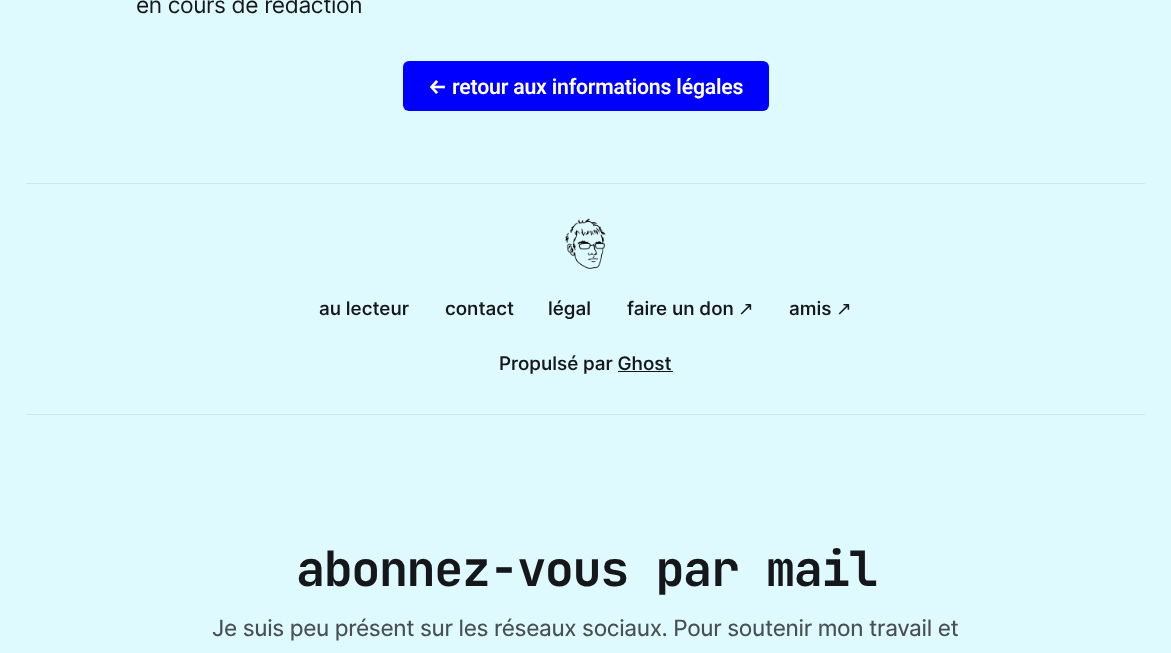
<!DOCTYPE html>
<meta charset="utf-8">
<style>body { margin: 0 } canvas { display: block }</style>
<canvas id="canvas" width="1171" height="653"></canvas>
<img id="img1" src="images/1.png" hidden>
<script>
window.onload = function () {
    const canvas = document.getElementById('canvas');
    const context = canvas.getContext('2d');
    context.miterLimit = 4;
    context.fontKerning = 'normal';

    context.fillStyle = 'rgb(223, 250, 255)';
    context.fillRect(0, 0, 1171, 653);
    context.fillStyle = 'rgb(0, 0, 255)';
    context.beginPath();
    context.roundRect(403, 61, 366, 50, 6);
    context.fill();
    context.fillStyle = 'rgb(205, 230, 235)';
    context.fillRect(26, 183, 1119, 1);
    context.fillRect(26, 414, 1119, 1);
    context.drawImage(document.getElementById('img1'), 565, 218, 41, 51);
    context.fillStyle = 'rgb(21, 23, 26)';
    context.fillRect(618, 371, 55, 1);
    context.letterSpacing = '-0.4px';
    context.font = '22.75px Inter';
    context.fillText('en cours de rédaction', 136, 13);
    context.letterSpacing = '-0.2px';
    context.font = '600 21.25px Fira Sans';
    context.fillStyle = 'rgb(255, 255, 255)';
    context.fillText('←', 428, 94);
    context.font = '600 21.25px Roboto';
    context.fillText('retour aux informations légales', 452, 94);
    context.letterSpacing = '0px';
    context.font = '500 18.75px Inter';
    context.fillStyle = 'rgb(21, 23, 26)';
    context.fillText('au lecteur', 319, 315);
    context.fillText('contact', 445, 315);
    context.fillText('légal', 548, 315);
    context.fillText('faire un don', 627, 315);
    context.font = '18.75px DejaVu Sans';
    context.fillText('↗', 738, 315);
    context.font = '500 18.75px Inter';
    context.fillText('amis', 789, 315);
    context.font = '18.75px DejaVu Sans';
    context.fillText('↗', 836, 315);
    context.font = '500 18.75px Inter';
    context.fillText('Propulsé par Ghost', 499, 370);
    context.letterSpacing = '-1.45px';
    context.font = 'bold 48.5px JetBrains Mono';
    context.fillText('abonnez-vous par mail', 296, 586);
    context.letterSpacing = '-0.32px';
    context.font = '22.5px "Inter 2"';
    context.fillStyle = 'rgb(72, 80, 83)';
    context.fillText('Je suis peu présent sur les réseaux sociaux. Pour soutenir mon travail et', 212, 636);
};
</script>
